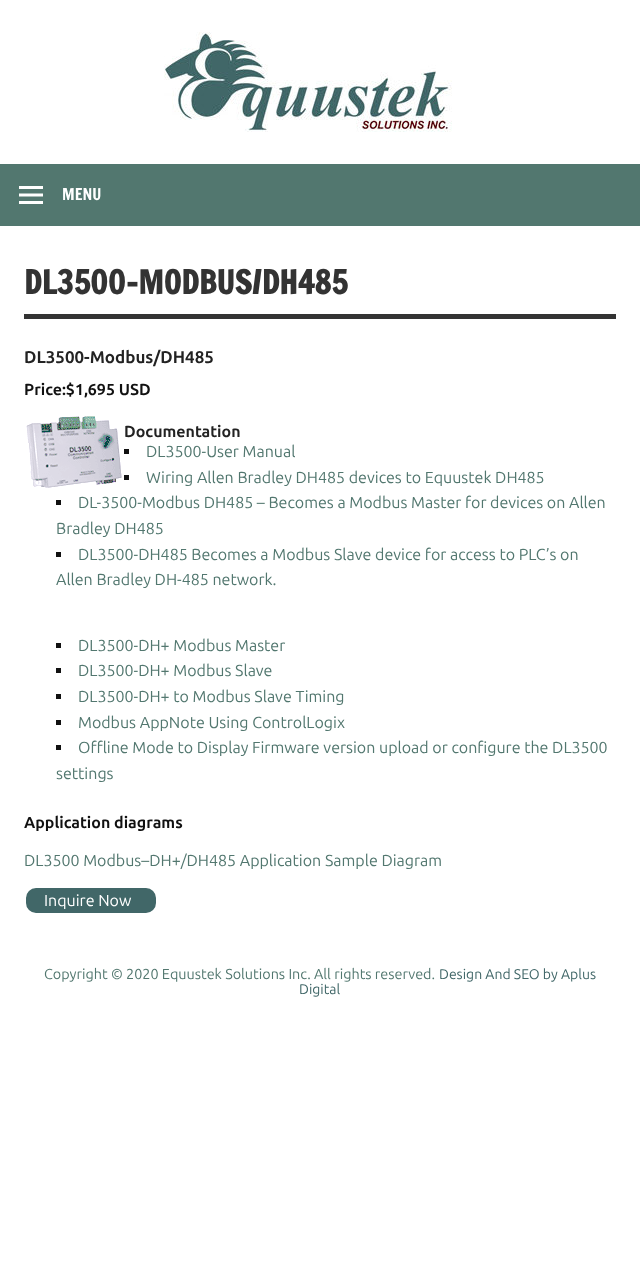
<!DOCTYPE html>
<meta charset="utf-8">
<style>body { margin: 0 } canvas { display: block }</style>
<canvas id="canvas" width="640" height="1281"></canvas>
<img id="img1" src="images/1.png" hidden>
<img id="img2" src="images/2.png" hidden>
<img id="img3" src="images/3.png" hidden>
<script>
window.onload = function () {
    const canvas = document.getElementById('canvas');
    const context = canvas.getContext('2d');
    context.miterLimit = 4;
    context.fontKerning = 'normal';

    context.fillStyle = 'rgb(255, 255, 255)';
    context.fillRect(0, 0, 640, 1281);
    context.drawImage(document.getElementById('img1'), 164, 32, 288, 100);
    context.fillStyle = 'rgb(82, 119, 111)';
    context.fillRect(0, 164, 640, 62);
    context.drawImage(document.getElementById('img2'), 19, 186, 24, 18);
    context.fillStyle = 'rgb(51, 51, 51)';
    context.fillRect(24, 314, 592, 5);
    context.drawImage(document.getElementById('img3'), 26, 416, 96, 72);
    context.fillStyle = 'rgb(17, 17, 17)';
    context.fillRect(124, 449, 5, 5);
    context.fillRect(124, 475, 5, 5);
    context.fillRect(56, 500, 5, 5);
    context.fillRect(56, 552, 5, 5);
    context.fillRect(56, 643, 5, 5);
    context.fillRect(56, 668, 5, 5);
    context.fillRect(56, 694, 5, 5);
    context.fillRect(56, 720, 5, 5);
    context.fillRect(56, 745, 5, 5);
    context.fillStyle = 'rgb(65, 103, 104)';
    context.beginPath();
    context.roundRect(25, 887, 132, 27, 11);
    context.fill();
    context.strokeStyle = 'rgb(255, 255, 255)';
    context.lineWidth = 2;
    context.stroke();
    context.font = '16px Francois One';
    context.fillStyle = 'rgb(255, 255, 255)';
    context.fillText('MENU', 62, 200);
    context.font = 'bold 32px Francois One';
    context.fillStyle = 'rgb(51, 51, 51)';
    context.fillText('DL3500–MODBUS/DH485', 24, 294);
    context.font = 'bold 17px Ubuntu';
    context.fillStyle = 'rgb(34, 34, 34)';
    context.fillText('DL3500-Modbus/DH485', 24, 363);
    context.font = 'bold 16px Ubuntu';
    context.fillStyle = 'rgb(17, 17, 17)';
    context.fillText('Price:$1,695 USD', 24, 395);
    context.fillStyle = 'rgb(34, 34, 34)';
    context.fillText('Documentation', 124, 437);
    context.font = '16px Ubuntu';
    context.fillStyle = 'rgb(82, 119, 111)';
    context.fillText('DL3500-User Manual', 146, 457);
    context.fillText('Wiring Allen Bradley DH485 devices to Equustek DH485', 146, 483);
    context.fillText('DL-3500-Modbus DH485 – Becomes a Modbus Master for devices on Allen', 78, 508);
    context.fillText('Bradley DH485', 56, 534);
    context.fillText('DL3500-DH485 Becomes a Modbus Slave device for access to PLC’s on', 78, 560);
    context.fillText('Allen Bradley DH-485 network.', 56, 585);
    context.fillText('DL3500-DH+ Modbus Master', 78, 651);
    context.fillText('DL3500-DH+ Modbus Slave', 78, 676);
    context.fillText('DL3500-DH+ to Modbus Slave Timing', 78, 702);
    context.fillText('Modbus AppNote Using ControlLogix', 78, 728);
    context.fillText('Offline Mode to Display Firmware version upload or configure the DL3500', 78, 753);
    context.fillText('settings', 56, 779);
    context.font = 'bold 16px Ubuntu';
    context.fillStyle = 'rgb(17, 17, 17)';
    context.fillText('Application diagrams', 24, 828);
    context.font = '16px Ubuntu';
    context.fillStyle = 'rgb(82, 119, 111)';
    context.fillText('DL3500 Modbus–DH+/DH485 Application Sample Diagram', 24, 866);
    context.fillStyle = 'rgb(255, 255, 255)';
    context.fillText('Inquire Now', 44, 906);
    context.font = '14.4px Ubuntu';
    context.fillStyle = 'rgb(82, 119, 111)';
    context.fillText('Copyright © 2020 Equustek Solutions Inc. All rights reserved.', 44, 979);
    context.font = '14px Ubuntu';
    context.fillStyle = 'rgb(65, 103, 104)';
    context.fillText('Design And SEO by Aplus', 439, 979);
    context.fillText('Digital', 299, 994);
};
</script>
